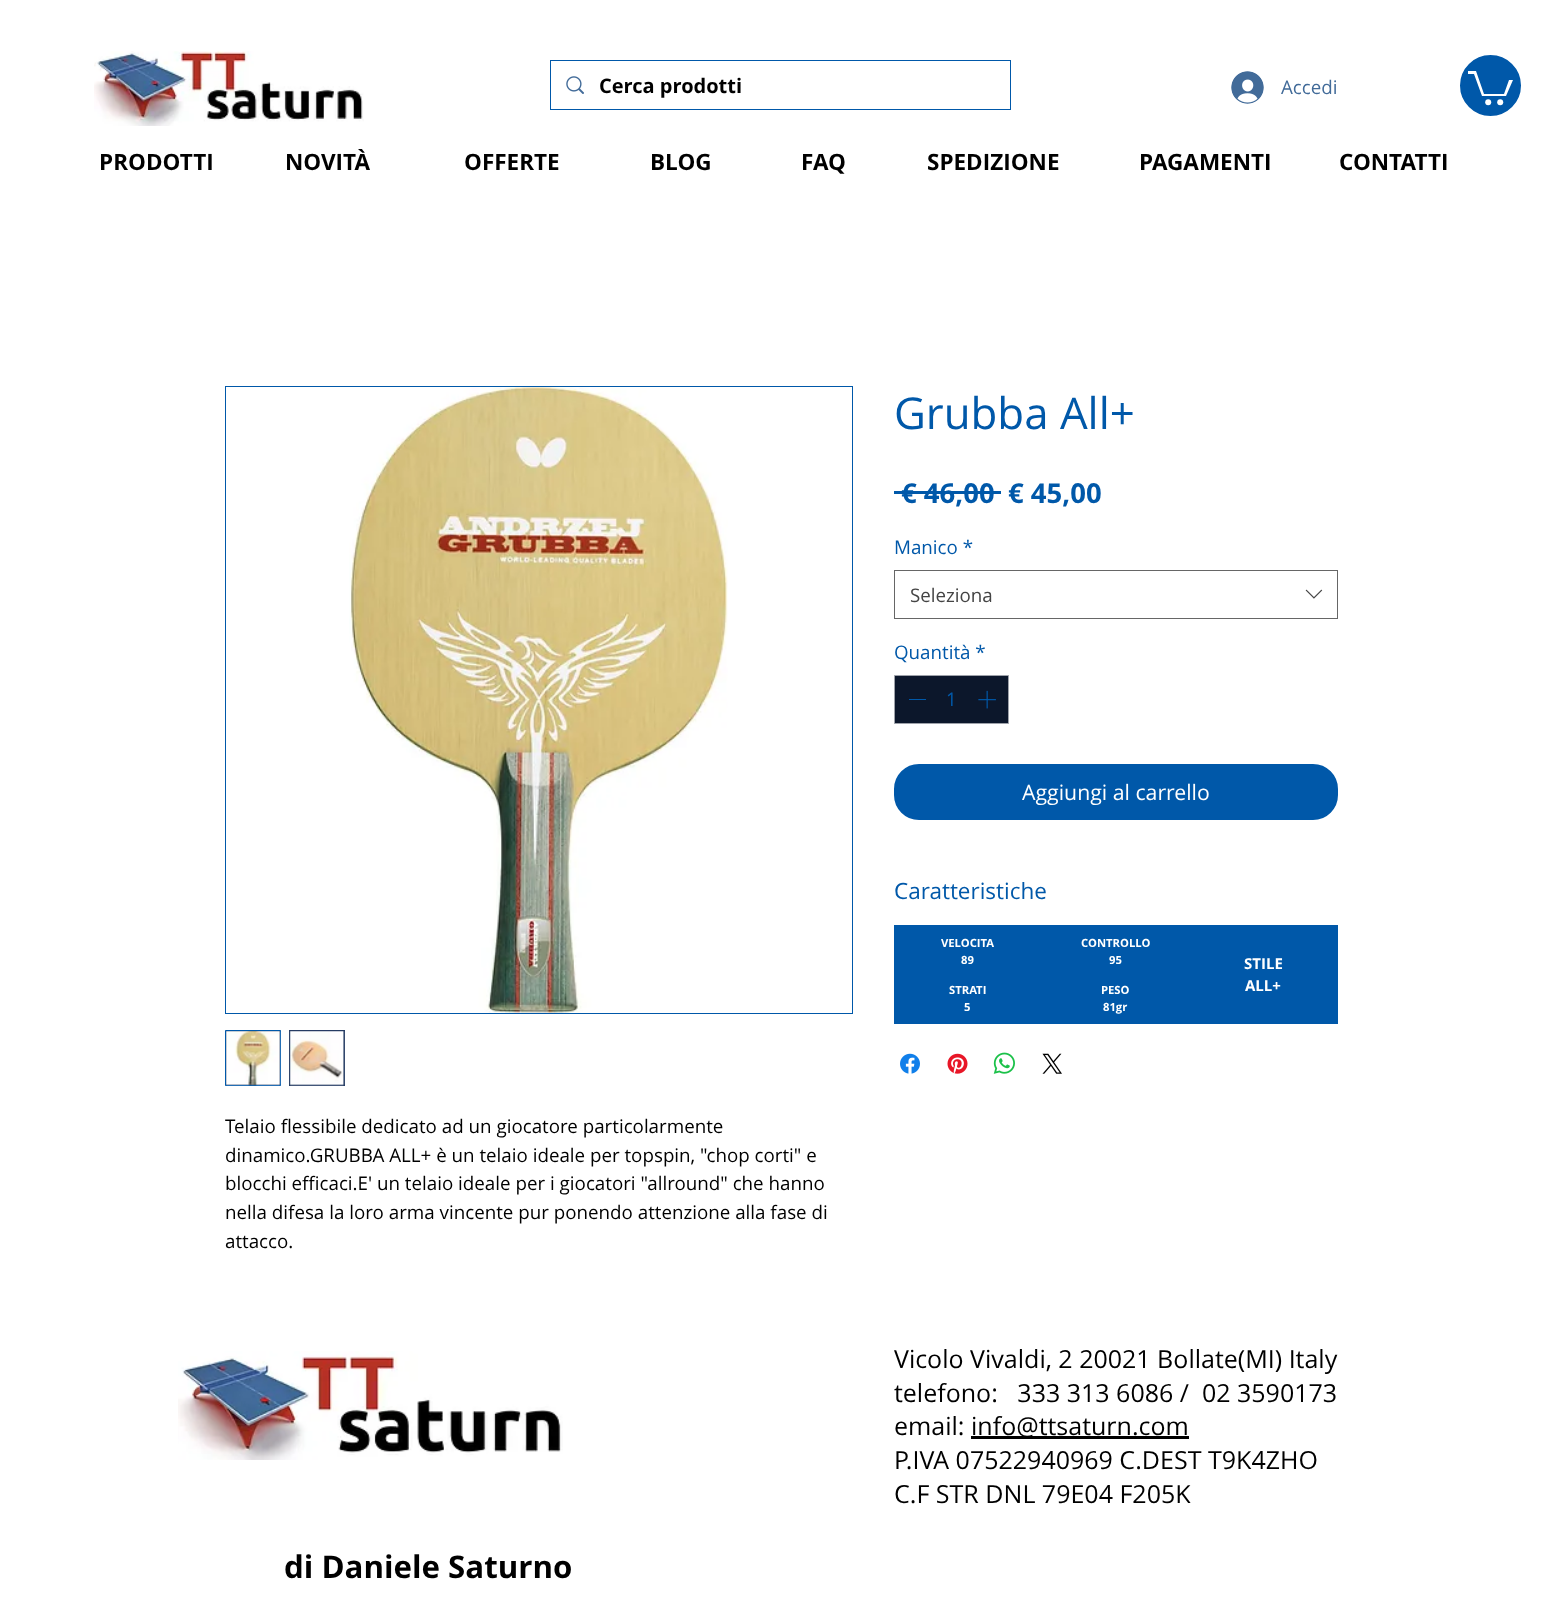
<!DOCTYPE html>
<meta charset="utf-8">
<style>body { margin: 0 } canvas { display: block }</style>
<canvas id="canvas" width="1562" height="1613"></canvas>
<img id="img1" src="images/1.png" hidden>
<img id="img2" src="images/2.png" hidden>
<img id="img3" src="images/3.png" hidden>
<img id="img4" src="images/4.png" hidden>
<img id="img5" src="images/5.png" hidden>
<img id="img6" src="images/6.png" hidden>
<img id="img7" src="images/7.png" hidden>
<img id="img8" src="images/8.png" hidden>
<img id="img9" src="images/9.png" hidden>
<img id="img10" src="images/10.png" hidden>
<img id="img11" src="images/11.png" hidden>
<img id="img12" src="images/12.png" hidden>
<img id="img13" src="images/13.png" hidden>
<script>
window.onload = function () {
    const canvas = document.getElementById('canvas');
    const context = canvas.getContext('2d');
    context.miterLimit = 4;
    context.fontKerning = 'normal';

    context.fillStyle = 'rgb(255, 255, 255)';
    context.fillRect(0, 0, 1562, 1613);
    context.drawImage(document.getElementById('img1'), 94, 51, 270, 75);
    context.strokeStyle = 'rgb(0, 88, 169)';
    context.strokeRect(550.5, 60.5, 460, 49);
    context.drawImage(document.getElementById('img2'), 566, 76, 18, 18);
    context.drawImage(document.getElementById('img3'), 1231, 71, 33, 33);
    context.fillStyle = 'rgb(0, 88, 169)';
    context.beginPath();
    context.arc(1490.5, 85.5, 32.5, 0, 2 * Math.PI);
    context.fill();
    context.strokeStyle = 'rgb(255, 255, 255)';
    context.lineWidth = 4;
    context.stroke();
    context.fillStyle = 'rgb(255, 255, 255)';
    context.beginPath();
    context.moveTo(1513, 80);
    context.lineTo(1506, 96);
    context.lineTo(1482, 96);
    context.lineTo(1474, 74);
    context.lineTo(1468, 74);
    context.lineTo(1468, 71);
    context.lineTo(1476, 71);
    context.lineTo(1484, 94);
    context.lineTo(1504, 94);
    context.lineTo(1509, 80);
    context.fill();
    context.beginPath();
    context.arc(1500.2, 102.3, 3, 0, 2 * Math.PI);
    context.fill();
    context.beginPath();
    context.arc(1488.2, 102.3, 3, 0, 2 * Math.PI);
    context.fill();
    context.fillStyle = 'rgb(0, 88, 169)';
    context.fillRect(894, 491, 107, 3);
    context.strokeStyle = 'rgb(102, 102, 102)';
    context.lineWidth = 1;
    context.strokeRect(894.5, 570.5, 443, 48);
    context.drawImage(document.getElementById('img4'), 1305, 589, 18, 10);
    context.fillStyle = 'rgb(12, 23, 43)';
    context.beginPath();
    context.rect(894.5, 675.5, 114, 48);
    context.fill();
    context.strokeStyle = 'rgb(158, 162, 170)';
    context.stroke();
    context.fillStyle = 'rgb(0, 88, 169)';
    context.fillRect(909, 699, 17, 1);
    context.drawImage(document.getElementById('img5'), 978, 690, 18, 19);
    context.beginPath();
    context.roundRect(895.5, 765.5, 441, 53, 23.5);
    context.fill();
    context.strokeStyle = 'rgb(0, 88, 169)';
    context.lineWidth = 3;
    context.stroke();
    context.fillRect(894, 925, 444, 99);
    context.drawImage(document.getElementById('img6'), 900, 1053, 20, 21);
    context.drawImage(document.getElementById('img7'), 947, 1053, 21, 21);
    context.drawImage(document.getElementById('img8'), 993, 1052, 22, 22);
    context.drawImage(document.getElementById('img9'), 1042, 1053, 20, 21);
    context.lineWidth = 1;
    context.strokeRect(225.5, 386.5, 627, 627);
    context.drawImage(document.getElementById('img10'), 349, 387, 379, 626);
    context.fillStyle = 'rgb(37, 59, 99)';
    context.beginPath();
    context.rect(225.5, 1030.5, 55, 55);
    context.fill();
    context.stroke();
    context.drawImage(document.getElementById('img11'), 226, 1031, 55, 55);
    context.fillRect(289, 1030, 56, 56);
    context.drawImage(document.getElementById('img12'), 289, 1031, 56, 55);
    context.drawImage(document.getElementById('img13'), 178, 1351, 385, 109);
    context.fillStyle = 'rgb(0, 0, 0)';
    context.fillRect(971, 1436, 218, 3);
    context.font = 'bold 20px Open Sans';
    context.fillText('Cerca prodotti', 599, 93);
    context.font = '18.75px Open Sans';
    context.fillStyle = 'rgb(66, 107, 153)';
    context.fillText('Accedi', 1281, 94);
    context.font = 'bold 22.5px Open Sans';
    context.fillStyle = 'rgb(0, 0, 0)';
    context.fillText('PRODOTTI', 99, 170);
    context.fillText('NOVITÀ', 285, 170);
    context.fillText('OFFERTE', 464, 170);
    context.fillText('BLOG', 650, 170);
    context.fillText('FAQ', 801, 170);
    context.fillText('SPEDIZIONE', 927, 170);
    context.fillText('PAGAMENTI', 1139, 170);
    context.fillText('CONTATTI', 1339, 170);
    context.font = '43.75px Open Sans';
    context.fillStyle = 'rgb(0, 88, 169)';
    context.fillText('Grubba All+', 894, 429);
    context.font = 'bold 27.5px Open Sans';
    context.fillText('€ 46,00', 901, 503);
    context.fillText('€ 45,00', 1008, 503);
    context.font = '18.75px Open Sans';
    context.fillText('Manico *', 894, 554);
    context.fillStyle = 'rgb(68, 68, 68)';
    context.fillText('Seleziona', 910, 602);
    context.fillStyle = 'rgb(0, 88, 169)';
    context.fillText('Quantità *', 894, 659);
    context.fillText('1', 946, 706);
    context.font = '21.25px Open Sans';
    context.fillStyle = 'rgb(255, 255, 255)';
    context.fillText('Aggiungi al carrello', 1022, 800);
    context.font = '22.5px Open Sans';
    context.fillStyle = 'rgb(0, 88, 169)';
    context.fillText('Caratteristiche', 894, 899);
    context.font = 'bold 11.25px Open Sans';
    context.fillStyle = 'rgb(255, 255, 255)';
    context.fillText('VELOCITA', 941, 947);
    context.fillText('89', 961, 964);
    context.fillText('STRATI', 949, 994);
    context.fillText('5', 964, 1011);
    context.fillText('CONTROLLO', 1081, 947);
    context.fillText('95', 1109, 964);
    context.fillText('PESO', 1101, 994);
    context.fillText('81gr', 1103, 1011);
    context.font = 'bold 15px Open Sans';
    context.fillText('STILE', 1244, 969);
    context.fillText('ALL+', 1245, 991);
    context.font = '18.75px Open Sans';
    context.fillStyle = 'rgb(0, 0, 0)';
    context.fillText('Telaio flessibile dedicato ad un giocatore particolarmente', 225, 1133);
    context.fillText('dinamico.GRUBBA ALL+ è un telaio ideale per topspin, "chop corti" e', 225, 1162);
    context.fillText('blocchi efficaci.E\' un telaio ideale per i giocatori "allround" che hanno', 225, 1190);
    context.fillText('nella difesa la loro arma vincente pur ponendo attenzione alla fase di', 225, 1219);
    context.fillText('attacco.', 225, 1248);
    context.font = '25px Open Sans';
    context.fillText('Vicolo Vivaldi, 2 20021 Bollate(MI) Italy', 894, 1368);
    context.fillText('telefono:   333 313 6086 /  02 3590173', 894, 1402);
    context.fillText('email:', 894, 1435);
    context.fillText('info@ttsaturn.com', 971, 1435);
    context.fillText('P.IVA 07522940969 C.DEST T9K4ZHO', 894, 1469);
    context.fillText('C.F STR DNL 79E04 F205K', 894, 1503);
    context.font = 'bold 31.25px Open Sans';
    context.fillText('di Daniele Saturno', 284, 1578);
};
</script>
